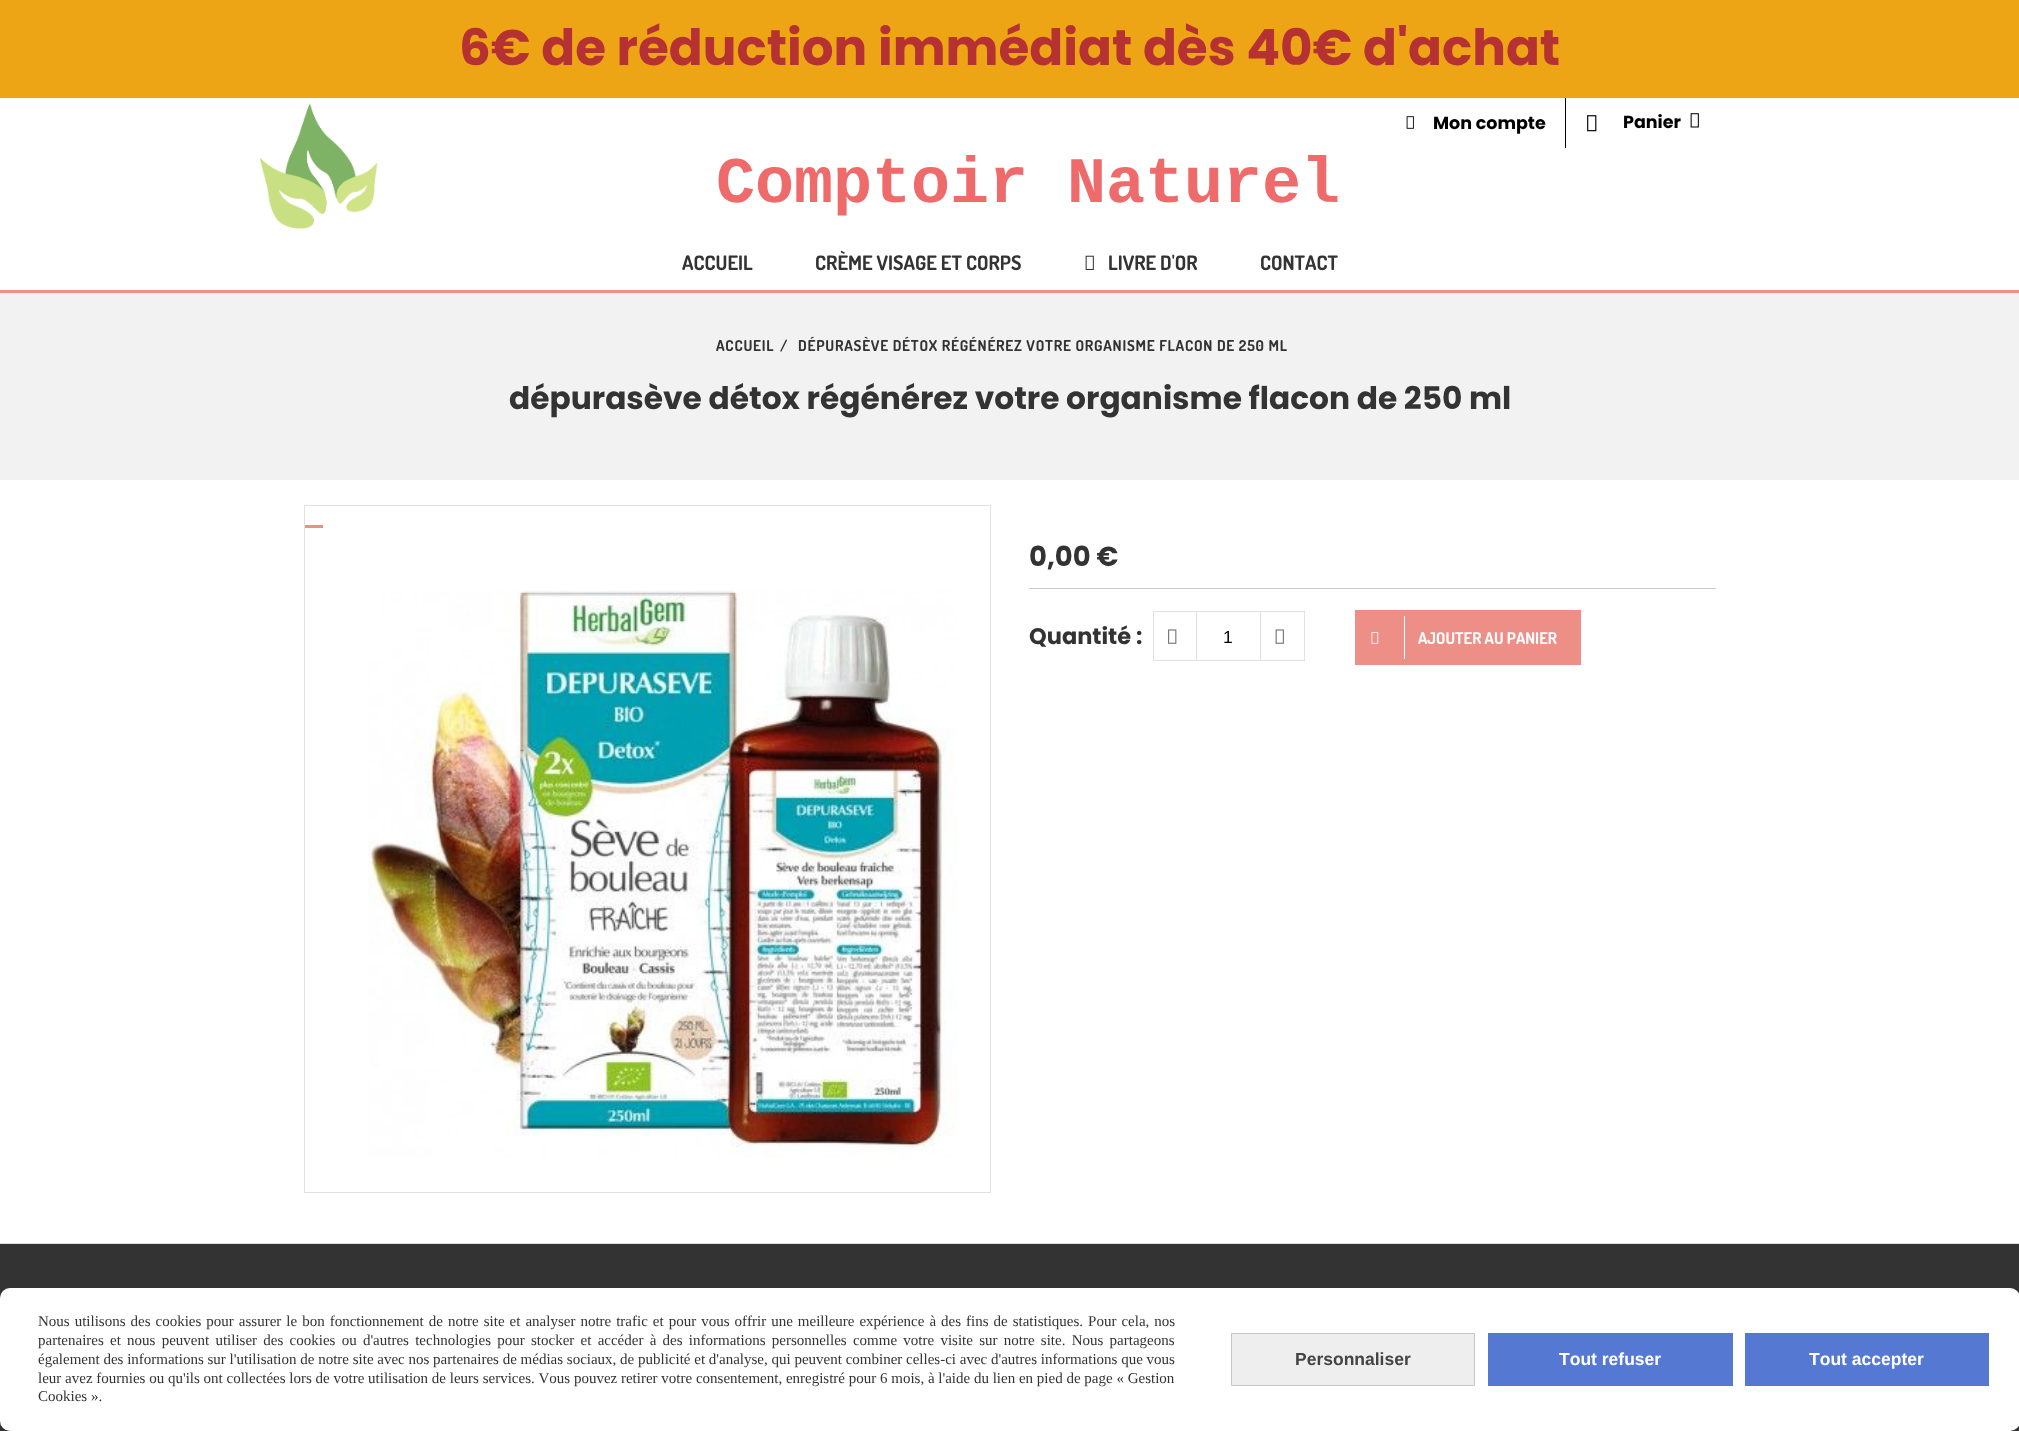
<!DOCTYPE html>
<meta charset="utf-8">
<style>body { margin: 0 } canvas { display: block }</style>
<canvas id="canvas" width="2019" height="1431"></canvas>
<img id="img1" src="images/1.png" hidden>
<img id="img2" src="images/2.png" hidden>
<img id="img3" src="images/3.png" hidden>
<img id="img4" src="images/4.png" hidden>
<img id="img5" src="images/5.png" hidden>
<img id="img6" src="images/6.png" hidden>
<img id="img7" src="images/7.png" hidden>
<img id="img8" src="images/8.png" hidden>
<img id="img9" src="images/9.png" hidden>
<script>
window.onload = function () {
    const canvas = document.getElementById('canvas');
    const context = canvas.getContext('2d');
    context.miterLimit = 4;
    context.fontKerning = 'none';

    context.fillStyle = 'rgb(255, 255, 255)';
    context.fillRect(0, 0, 2019, 1431);
    context.fillStyle = 'rgb(237, 165, 21)';
    context.fillRect(0, 0, 2019, 98);
    context.drawImage(document.getElementById('img1'), 260, 103, 118, 126);
    context.fillStyle = 'rgb(0, 0, 0)';
    context.fillRect(1565, 98, 1, 50);
    context.drawImage(document.getElementById('img2'), 1406, 116, 8, 13);
    context.drawImage(document.getElementById('img3'), 1587, 115, 10, 17);
    context.drawImage(document.getElementById('img4'), 1690, 113, 9, 15);
    context.fillStyle = 'rgb(237, 143, 134)';
    context.fillRect(0, 290, 2019, 3);
    context.drawImage(document.getElementById('img5'), 1085, 255, 9, 15);
    context.fillStyle = 'rgb(242, 242, 242)';
    context.fillRect(0, 293, 2019, 187);
    context.strokeStyle = 'rgb(225, 225, 225)';
    context.strokeRect(304.5, 505.5, 686, 687);
    context.fillStyle = 'rgb(237, 143, 134)';
    context.fillRect(305, 525, 18, 3);
    context.drawImage(document.getElementById('img6'), 368, 590, 589, 568);
    context.fillStyle = 'rgb(204, 204, 204)';
    context.fillRect(1029, 588, 687, 1);
    context.fillStyle = 'rgb(225, 225, 225)';
    context.fillRect(1153, 611, 43, 1);
    context.fillRect(1153, 660, 43, 1);
    context.fillRect(1153, 611, 1, 50);
    context.drawImage(document.getElementById('img7'), 1168, 629, 9, 15);
    context.strokeRect(1196.5, 611.5, 64, 49);
    context.fillRect(1261, 611, 44, 1);
    context.fillRect(1304, 611, 1, 50);
    context.fillRect(1261, 660, 44, 1);
    context.drawImage(document.getElementById('img8'), 1275, 629, 9, 15);
    context.fillStyle = 'rgb(237, 143, 134)';
    context.fillRect(1355, 610, 226, 55);
    context.fillStyle = 'rgb(255, 255, 255)';
    context.fillRect(1404, 616, 1, 43);
    context.drawImage(document.getElementById('img9'), 1371, 632, 8, 12);
    context.fillStyle = 'rgb(51, 51, 51)';
    context.fillRect(0, 1244, 2019, 187);
    context.fillStyle = 'rgb(225, 225, 225)';
    context.fillRect(0, 1243, 2019, 1);
    context.fillStyle = 'rgb(255, 255, 255)';
    context.beginPath();
    context.roundRect(0, 1288, 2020, 143, 10);
    context.fill();
    context.fillStyle = 'rgb(238, 238, 238)';
    context.beginPath();
    context.rect(1231.5, 1333.5, 243, 52);
    context.fill();
    context.strokeStyle = 'rgb(197, 197, 197)';
    context.stroke();
    context.fillStyle = 'rgb(85, 121, 210)';
    context.fillRect(1488, 1333, 245, 53);
    context.fillRect(1745, 1333, 244, 53);
    context.font = 'bold 50px Poppins';
    context.fillStyle = 'rgb(182, 49, 49)';
    context.fillText('6€ de réduction immédiat dès 40€ d\'achat', 459, 65);
    context.font = 'bold 17.5px Poppins';
    context.fillStyle = 'rgb(0, 0, 0)';
    context.fillText('Mon compte', 1433, 129);
    context.fillText('Panier', 1623, 128);
    context.font = 'bold 65px Liberation Mono';
    context.fillStyle = 'rgb(239, 107, 107)';
    context.fillText('Comptoir Naturel', 716, 202);
    context.font = 'bold 20px Dosis';
    context.fillStyle = 'rgb(51, 51, 51)';
    context.fillText('ACCUEIL', 682, 270);
    context.fillText('CRÈME VISAGE ET CORPS', 815, 270);
    context.fillText('LIVRE D\'OR', 1108, 270);
    context.fillText('CONTACT', 1260, 270);
    context.letterSpacing = '0.75px';
    context.font = 'bold 15px Dosis';
    context.fillText('ACCUEIL', 716, 351);
    context.fillText('/', 780, 351);
    context.fillText('DÉPURASÈVE DÉTOX RÉGÉNÉREZ VOTRE ORGANISME FLACON DE 250 ML', 798, 351);
    context.letterSpacing = '0px';
    context.font = 'bold 31.25px Poppins';
    context.fillText('dépurasève détox régénérez votre organisme flacon de 250 ml', 509, 409);
    context.font = 'bold 27.5px Poppins';
    context.fillText('0,00 €', 1029, 566);
    context.font = 'bold 22.5px Poppins';
    context.fillText('Quantité :', 1029, 644);
    context.font = '17.5px Liberation Sans';
    context.fillStyle = 'rgb(0, 0, 0)';
    context.fillText('1', 1223, 643);
    context.font = 'bold 16.25px Dosis';
    context.fillStyle = 'rgb(255, 255, 255)';
    context.fillText('AJOUTER AU PANIER', 1418, 644);
    context.wordSpacing = '1.25px';
    context.font = '15px Liberation Serif';
    context.fillStyle = 'rgb(51, 51, 51)';
    context.fillText('Nous utilisons des cookies pour assurer le bon fonctionnement de notre site et analyser notre trafic et pour vous offrir une meilleure expérience à des fins de statistiques. Pour cela, nos', 38, 1326);
    context.wordSpacing = '2.5px';
    context.fillText('partenaires et nous peuvent utiliser des cookies ou d\'autres technologies pour stocker et accéder à des informations personnelles comme votre visite sur notre site. Nous partageons', 38, 1345);
    context.wordSpacing = '0px';
    context.fillText('également des informations sur l\'utilisation de notre site avec nos partenaires de médias sociaux, de publicité et d\'analyse, qui peuvent combiner celles-ci avec d\'autres informations que vous', 38, 1364);
    context.fillText('leur avez fournies ou qu\'ils ont collectées lors de votre utilisation de leurs services. Vous pouvez retirer votre consentement, enregistré pour 6 mois, à l\'aide du lien en pied de page « Gestion', 38, 1383);
    context.fillText('Cookies ».', 38, 1401);
    context.font = 'bold 17.5px Liberation Sans';
    context.fillStyle = 'rgb(68, 68, 68)';
    context.fillText('Personnaliser', 1295, 1365);
    context.fillStyle = 'rgb(255, 255, 255)';
    context.fillText('Tout refuser', 1559, 1365);
    context.fillText('Tout accepter', 1809, 1365);
};
</script>
